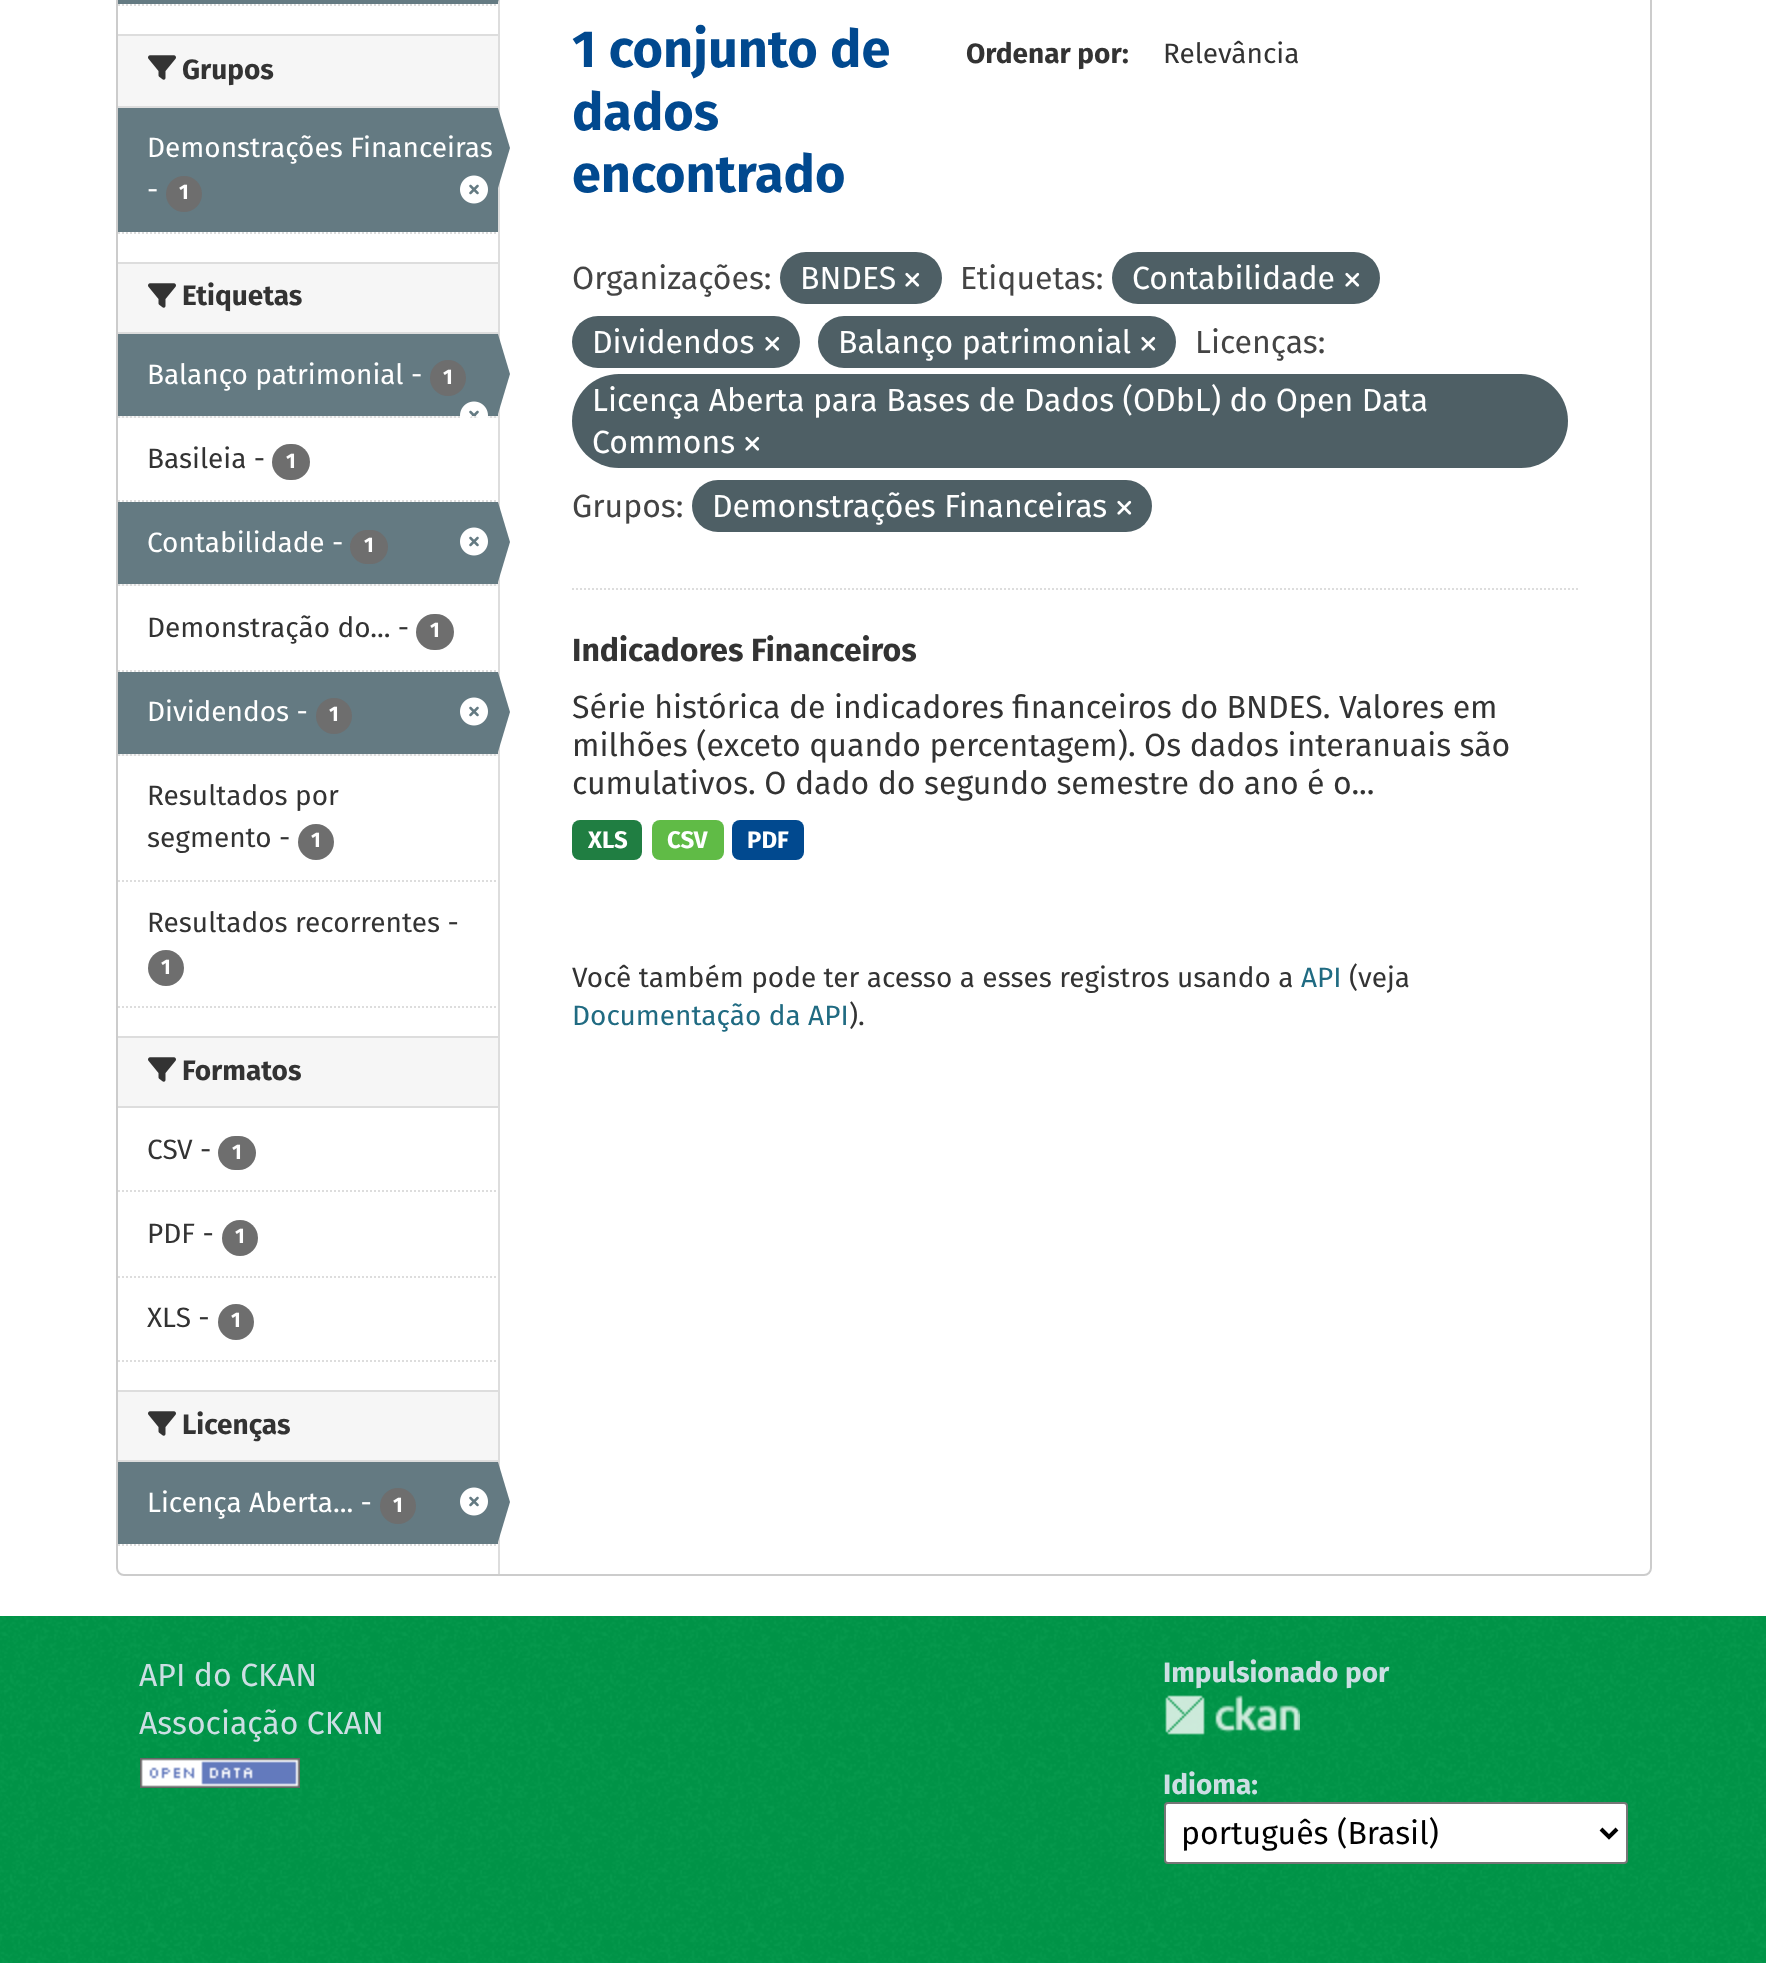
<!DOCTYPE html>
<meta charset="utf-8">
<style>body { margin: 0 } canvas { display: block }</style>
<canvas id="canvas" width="1766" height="1963"></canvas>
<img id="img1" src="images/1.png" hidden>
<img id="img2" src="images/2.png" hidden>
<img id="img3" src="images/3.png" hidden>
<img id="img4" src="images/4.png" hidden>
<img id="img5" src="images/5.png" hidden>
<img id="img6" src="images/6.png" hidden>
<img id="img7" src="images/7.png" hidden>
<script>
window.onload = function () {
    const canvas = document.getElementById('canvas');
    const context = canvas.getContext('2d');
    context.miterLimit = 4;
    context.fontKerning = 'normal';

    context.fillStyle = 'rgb(255, 255, 255)';
    context.fillRect(0, 0, 1766, 1963);
    context.beginPath();
    context.roundRect(117, -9, 1534, 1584, 7);
    context.strokeStyle = 'rgb(204, 204, 204)';
    context.lineWidth = 2;
    context.stroke();
    context.fillStyle = 'rgb(100, 122, 130)';
    context.fillRect(118, 0, 380, 4);
    context.fillStyle = 'rgb(221, 221, 221)';
    context.fillRect(498, 0, 2, 1574);
    context.fillStyle = 'rgb(100, 122, 130)';
    context.beginPath();
    context.moveTo(498, 2);
    context.lineTo(498, -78);
    context.lineTo(510, -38);
    context.closePath();
    context.fill();
    context.beginPath();
    context.moveTo(118, 5);
    context.lineTo(498, 5);
    context.strokeStyle = 'rgb(221, 221, 221)';
    context.setLineDash([2, 2]);
    context.stroke();
    context.fillStyle = 'rgb(246, 246, 246)';
    context.fillRect(118, 36, 380, 70);
    context.fillStyle = 'rgb(221, 221, 221)';
    context.fillRect(118, 34, 380, 2);
    context.fillRect(118, 106, 380, 2);
    context.drawImage(document.getElementById('img1'), 148, 55, 28, 25);
    context.fillStyle = 'rgb(100, 122, 130)';
    context.fillRect(118, 108, 380, 124);
    context.beginPath();
    context.moveTo(498, 188);
    context.lineTo(498, 108);
    context.lineTo(510, 148);
    context.closePath();
    context.fill();
    context.fillStyle = 'rgb(110, 110, 110)';
    context.beginPath();
    context.arc(184, 194, 18, 0, 2 * Math.PI);
    context.fill();
    context.drawImage(document.getElementById('img2'), 460, 175, 28, 29);
    context.beginPath();
    context.moveTo(118, 233);
    context.lineTo(498, 233);
    context.stroke();
    context.fillStyle = 'rgb(246, 246, 246)';
    context.fillRect(118, 264, 380, 68);
    context.fillStyle = 'rgb(221, 221, 221)';
    context.fillRect(118, 262, 380, 2);
    context.fillRect(118, 332, 380, 2);
    context.drawImage(document.getElementById('img1'), 148, 283, 28, 25);
    context.fillStyle = 'rgb(246, 246, 246)';
    context.fillRect(120, 416, 378, 2);
    context.beginPath();
    context.moveTo(118, 417);
    context.lineTo(498, 417);
    context.stroke();
    context.fillStyle = 'rgb(100, 122, 130)';
    context.fillRect(118, 334, 380, 82);
    context.fillStyle = 'rgb(110, 110, 110)';
    context.beginPath();
    context.arc(448, 378, 18, 0, 2 * Math.PI);
    context.fill();
    context.fillStyle = 'rgb(100, 122, 130)';
    context.beginPath();
    context.moveTo(498, 414);
    context.lineTo(498, 334);
    context.lineTo(510, 374);
    context.closePath();
    context.fill();
    context.drawImage(document.getElementById('img3'), 460, 401, 28, 17);
    context.beginPath();
    context.moveTo(118, 501);
    context.lineTo(498, 501);
    context.stroke();
    context.fillStyle = 'rgb(110, 110, 110)';
    context.beginPath();
    context.roundRect(272, 444, 38, 36, 18);
    context.fill();
    context.fillStyle = 'rgb(246, 246, 246)';
    context.fillRect(120, 584, 378, 2);
    context.beginPath();
    context.moveTo(118, 585);
    context.lineTo(498, 585);
    context.stroke();
    context.fillStyle = 'rgb(100, 122, 130)';
    context.fillRect(118, 502, 380, 82);
    context.fillStyle = 'rgb(110, 110, 110)';
    context.beginPath();
    context.roundRect(350, 530, 38, 34, 17);
    context.fill();
    context.drawImage(document.getElementById('img2'), 460, 527, 28, 29);
    context.fillStyle = 'rgb(100, 122, 130)';
    context.beginPath();
    context.moveTo(498, 582);
    context.lineTo(498, 502);
    context.lineTo(510, 542);
    context.closePath();
    context.fill();
    context.beginPath();
    context.moveTo(118, 671);
    context.lineTo(498, 671);
    context.stroke();
    context.fillStyle = 'rgb(110, 110, 110)';
    context.beginPath();
    context.roundRect(416, 614, 38, 36, 18);
    context.fill();
    context.fillStyle = 'rgb(246, 246, 246)';
    context.fillRect(120, 754, 378, 2);
    context.beginPath();
    context.moveTo(118, 755);
    context.lineTo(498, 755);
    context.stroke();
    context.fillStyle = 'rgb(100, 122, 130)';
    context.fillRect(118, 672, 380, 82);
    context.fillStyle = 'rgb(110, 110, 110)';
    context.beginPath();
    context.arc(334, 716, 18, 0, 2 * Math.PI);
    context.fill();
    context.drawImage(document.getElementById('img2'), 460, 697, 28, 29);
    context.fillStyle = 'rgb(100, 122, 130)';
    context.beginPath();
    context.moveTo(498, 752);
    context.lineTo(498, 672);
    context.lineTo(510, 712);
    context.closePath();
    context.fill();
    context.beginPath();
    context.moveTo(118, 881);
    context.lineTo(498, 881);
    context.stroke();
    context.fillStyle = 'rgb(110, 110, 110)';
    context.beginPath();
    context.arc(316, 842, 18, 0, 2 * Math.PI);
    context.fill();
    context.beginPath();
    context.arc(166, 968, 18, 0, 2 * Math.PI);
    context.fill();
    context.beginPath();
    context.moveTo(118, 1007);
    context.lineTo(498, 1007);
    context.stroke();
    context.fillStyle = 'rgb(246, 246, 246)';
    context.fillRect(118, 1038, 380, 68);
    context.fillStyle = 'rgb(221, 221, 221)';
    context.fillRect(118, 1036, 380, 2);
    context.fillRect(118, 1106, 380, 2);
    context.drawImage(document.getElementById('img1'), 148, 1057, 28, 25);
    context.beginPath();
    context.moveTo(118, 1191);
    context.lineTo(498, 1191);
    context.stroke();
    context.fillStyle = 'rgb(110, 110, 110)';
    context.beginPath();
    context.roundRect(218, 1136, 38, 34, 17);
    context.fill();
    context.beginPath();
    context.moveTo(118, 1277);
    context.lineTo(498, 1277);
    context.stroke();
    context.beginPath();
    context.arc(240, 1238, 18, 0, 2 * Math.PI);
    context.fill();
    context.beginPath();
    context.arc(236, 1322, 18, 0, 2 * Math.PI);
    context.fill();
    context.beginPath();
    context.moveTo(118, 1361);
    context.lineTo(498, 1361);
    context.stroke();
    context.fillStyle = 'rgb(246, 246, 246)';
    context.fillRect(118, 1392, 380, 68);
    context.fillStyle = 'rgb(221, 221, 221)';
    context.fillRect(118, 1390, 380, 2);
    context.fillRect(118, 1460, 380, 2);
    context.drawImage(document.getElementById('img1'), 148, 1411, 28, 25);
    context.fillStyle = 'rgb(100, 122, 130)';
    context.fillRect(118, 1462, 380, 82);
    context.fillStyle = 'rgb(110, 110, 110)';
    context.beginPath();
    context.arc(398, 1506, 18, 0, 2 * Math.PI);
    context.fill();
    context.drawImage(document.getElementById('img2'), 460, 1487, 28, 29);
    context.fillStyle = 'rgb(100, 122, 130)';
    context.beginPath();
    context.moveTo(498, 1542);
    context.lineTo(498, 1462);
    context.lineTo(510, 1502);
    context.closePath();
    context.fill();
    context.beginPath();
    context.moveTo(118, 1545);
    context.lineTo(498, 1545);
    context.stroke();
    context.beginPath();
    context.moveTo(572, 589);
    context.lineTo(1578, 589);
    context.stroke();
    context.fillStyle = 'rgb(78, 95, 101)';
    context.beginPath();
    context.roundRect(780, 252, 162, 52, 26);
    context.fill();
    context.drawImage(document.getElementById('img4'), 905, 272, 15, 15);
    context.beginPath();
    context.roundRect(1112, 252, 268, 52, 26);
    context.fill();
    context.drawImage(document.getElementById('img4'), 1345, 272, 15, 15);
    context.beginPath();
    context.roundRect(572, 316, 228, 52, 26);
    context.fill();
    context.drawImage(document.getElementById('img4'), 765, 336, 15, 15);
    context.beginPath();
    context.roundRect(818, 316, 358, 52, 26);
    context.fill();
    context.drawImage(document.getElementById('img4'), 1141, 336, 15, 15);
    context.beginPath();
    context.roundRect(572, 374, 996, 94, 47);
    context.fill();
    context.drawImage(document.getElementById('img4'), 745, 436, 15, 15);
    context.beginPath();
    context.roundRect(692, 480, 460, 52, 26);
    context.fill();
    context.drawImage(document.getElementById('img4'), 1117, 500, 15, 15);
    context.fillStyle = 'rgb(32, 126, 66)';
    context.beginPath();
    context.roundRect(572, 820, 70, 40, 8);
    context.fill();
    context.fillStyle = 'rgb(96, 187, 70)';
    context.beginPath();
    context.roundRect(652, 820, 72, 40, 8);
    context.fill();
    context.fillStyle = 'rgb(1, 73, 143)';
    context.beginPath();
    context.roundRect(732, 820, 72, 40, 8);
    context.fill();
    context.fillStyle = 'rgb(0, 152, 74)';
    context.fillRect(0, 1616, 1766, 347);
    context.drawImage(document.getElementById('img5'), 0, 1616, 1766, 347);
    context.drawImage(document.getElementById('img6'), 140, 1758, 160, 30);
    context.drawImage(document.getElementById('img7'), 1165, 1695, 135, 40);
    context.fillStyle = 'rgb(255, 255, 255)';
    context.beginPath();
    context.roundRect(1165, 1803, 462, 60, 3);
    context.fill();
    context.strokeStyle = 'rgb(118, 118, 118)';
    context.setLineDash([]);
    context.stroke();
    context.beginPath();
    context.moveTo(1601, 1829);
    context.lineTo(1609, 1837);
    context.lineTo(1617, 1829);
    context.strokeStyle = 'rgb(0, 0, 0)';
    context.lineWidth = 4;
    context.stroke();
    context.font = 'bold 28px Fira Sans';
    context.fillStyle = 'rgb(51, 51, 51)';
    context.fillText('Grupos', 182, 79);
    context.font = '28px Fira Sans';
    context.fillStyle = 'rgb(255, 255, 255)';
    context.fillText('Demonstrações Financeiras', 147, 157);
    context.fillText('-', 147, 199);
    context.font = 'bold 21px Fira Sans';
    context.fillText('1', 179, 199);
    context.font = 'bold 28px Fira Sans';
    context.fillStyle = 'rgb(51, 51, 51)';
    context.fillText('Etiquetas', 182, 305);
    context.font = '28px Fira Sans';
    context.fillStyle = 'rgb(255, 255, 255)';
    context.fillText('Balanço patrimonial -', 147, 384);
    context.font = 'bold 21px Fira Sans';
    context.fillText('1', 443, 384);
    context.font = '28px Fira Sans';
    context.fillStyle = 'rgb(51, 51, 51)';
    context.fillText('Basileia -', 147, 468);
    context.font = 'bold 21px Fira Sans';
    context.fillStyle = 'rgb(255, 255, 255)';
    context.fillText('1', 286, 468);
    context.font = '28px Fira Sans';
    context.fillText('Contabilidade -', 147, 552);
    context.font = 'bold 21px Fira Sans';
    context.fillText('1', 364, 552);
    context.font = '28px Fira Sans';
    context.fillStyle = 'rgb(51, 51, 51)';
    context.fillText('Demonstração do... -', 147, 637);
    context.font = 'bold 21px Fira Sans';
    context.fillStyle = 'rgb(255, 255, 255)';
    context.fillText('1', 430, 637);
    context.font = '28px Fira Sans';
    context.fillText('Dividendos -', 147, 721);
    context.font = 'bold 21px Fira Sans';
    context.fillText('1', 329, 721);
    context.font = '28px Fira Sans';
    context.fillStyle = 'rgb(51, 51, 51)';
    context.fillText('Resultados por', 147, 805);
    context.fillText('segmento -', 147, 847);
    context.font = 'bold 21px Fira Sans';
    context.fillStyle = 'rgb(255, 255, 255)';
    context.fillText('1', 311, 847);
    context.font = '28px Fira Sans';
    context.fillStyle = 'rgb(51, 51, 51)';
    context.fillText('Resultados recorrentes -', 147, 932);
    context.font = 'bold 21px Fira Sans';
    context.fillStyle = 'rgb(255, 255, 255)';
    context.fillText('1', 161, 974);
    context.font = 'bold 28px Fira Sans';
    context.fillStyle = 'rgb(51, 51, 51)';
    context.fillText('Formatos', 182, 1080);
    context.font = '28px Fira Sans';
    context.fillText('CSV -', 147, 1159);
    context.font = 'bold 21px Fira Sans';
    context.fillStyle = 'rgb(255, 255, 255)';
    context.fillText('1', 232, 1159);
    context.font = '28px Fira Sans';
    context.fillStyle = 'rgb(51, 51, 51)';
    context.fillText('PDF -', 147, 1243);
    context.font = 'bold 21px Fira Sans';
    context.fillStyle = 'rgb(255, 255, 255)';
    context.fillText('1', 235, 1243);
    context.font = '28px Fira Sans';
    context.fillStyle = 'rgb(51, 51, 51)';
    context.fillText('XLS -', 147, 1327);
    context.font = 'bold 21px Fira Sans';
    context.fillStyle = 'rgb(255, 255, 255)';
    context.fillText('1', 231, 1327);
    context.font = 'bold 28px Fira Sans';
    context.fillStyle = 'rgb(51, 51, 51)';
    context.fillText('Licenças', 182, 1434);
    context.font = '28px Fira Sans';
    context.fillStyle = 'rgb(255, 255, 255)';
    context.fillText('Licença Aberta... -', 147, 1512);
    context.font = 'bold 21px Fira Sans';
    context.fillText('1', 393, 1512);
    context.font = 'bold 52.25px Fira Sans';
    context.fillStyle = 'rgb(1, 73, 143)';
    context.fillText('1 conjunto de', 572, 67);
    context.fillText('dados', 572, 130);
    context.fillText('encontrado', 572, 192);
    context.font = 'bold 28px Fira Sans';
    context.fillStyle = 'rgb(51, 51, 51)';
    context.fillText('Ordenar por:', 966, 63);
    context.font = '28px Fira Sans';
    context.fillText('Relevância', 1163, 63);
    context.font = '32px Fira Sans';
    context.fillStyle = 'rgb(68, 68, 68)';
    context.fillText('Organizações:', 572, 289);
    context.fillStyle = 'rgb(255, 255, 255)';
    context.fillText('BNDES', 800, 289);
    context.fillStyle = 'rgb(68, 68, 68)';
    context.fillText('Etiquetas:', 960, 289);
    context.fillStyle = 'rgb(255, 255, 255)';
    context.fillText('Contabilidade', 1132, 289);
    context.fillText('Dividendos', 592, 353);
    context.fillText('Balanço patrimonial', 838, 353);
    context.fillStyle = 'rgb(68, 68, 68)';
    context.fillText('Licenças:', 1195, 353);
    context.fillStyle = 'rgb(255, 255, 255)';
    context.fillText('Licença Aberta para Bases de Dados (ODbL) do Open Data', 592, 411);
    context.fillText('Commons', 592, 453);
    context.fillStyle = 'rgb(68, 68, 68)';
    context.fillText('Grupos:', 572, 517);
    context.fillStyle = 'rgb(255, 255, 255)';
    context.fillText('Demonstrações Financeiras', 712, 517);
    context.font = 'bold 32px Fira Sans';
    context.fillStyle = 'rgb(51, 51, 51)';
    context.fillText('Indicadores Financeiros', 572, 661);
    context.font = '32px Fira Sans';
    context.fillText('Série histórica de indicadores financeiros do BNDES. Valores em', 572, 718);
    context.fillText('milhões (exceto quando percentagem). Os dados interanuais são', 572, 756);
    context.fillText('cumulativos. O dado do segundo semestre do ano é o...', 572, 794);
    context.font = 'bold 24px Fira Sans';
    context.fillStyle = 'rgb(255, 255, 255)';
    context.fillText('XLS', 588, 848);
    context.fillText('CSV', 667, 848);
    context.fillText('PDF', 747, 848);
    context.font = '28px Fira Sans';
    context.fillStyle = 'rgb(51, 51, 51)';
    context.fillText('Você também pode ter acesso a esses registros usando a', 572, 987);
    context.fillStyle = 'rgb(32, 107, 130)';
    context.fillText('API', 1301, 987);
    context.fillStyle = 'rgb(51, 51, 51)';
    context.fillText('(veja', 1349, 987);
    context.fillStyle = 'rgb(32, 107, 130)';
    context.fillText('Documentação da API', 572, 1025);
    context.fillStyle = 'rgb(51, 51, 51)';
    context.fillText(').', 849, 1025);
    context.font = '32px Fira Sans';
    context.fillStyle = 'rgb(204, 222, 227)';
    context.fillText('API do CKAN', 139, 1686);
    context.fillText('Associação CKAN', 139, 1734);
    context.font = 'bold 28px Fira Sans';
    context.fillText('Impulsionado por', 1163, 1682);
    context.fillText('Idioma:', 1163, 1794);
    context.font = '32px Fira Sans';
    context.fillStyle = 'rgb(0, 0, 0)';
    context.fillText('português (Brasil)', 1181, 1844);
};
</script>
